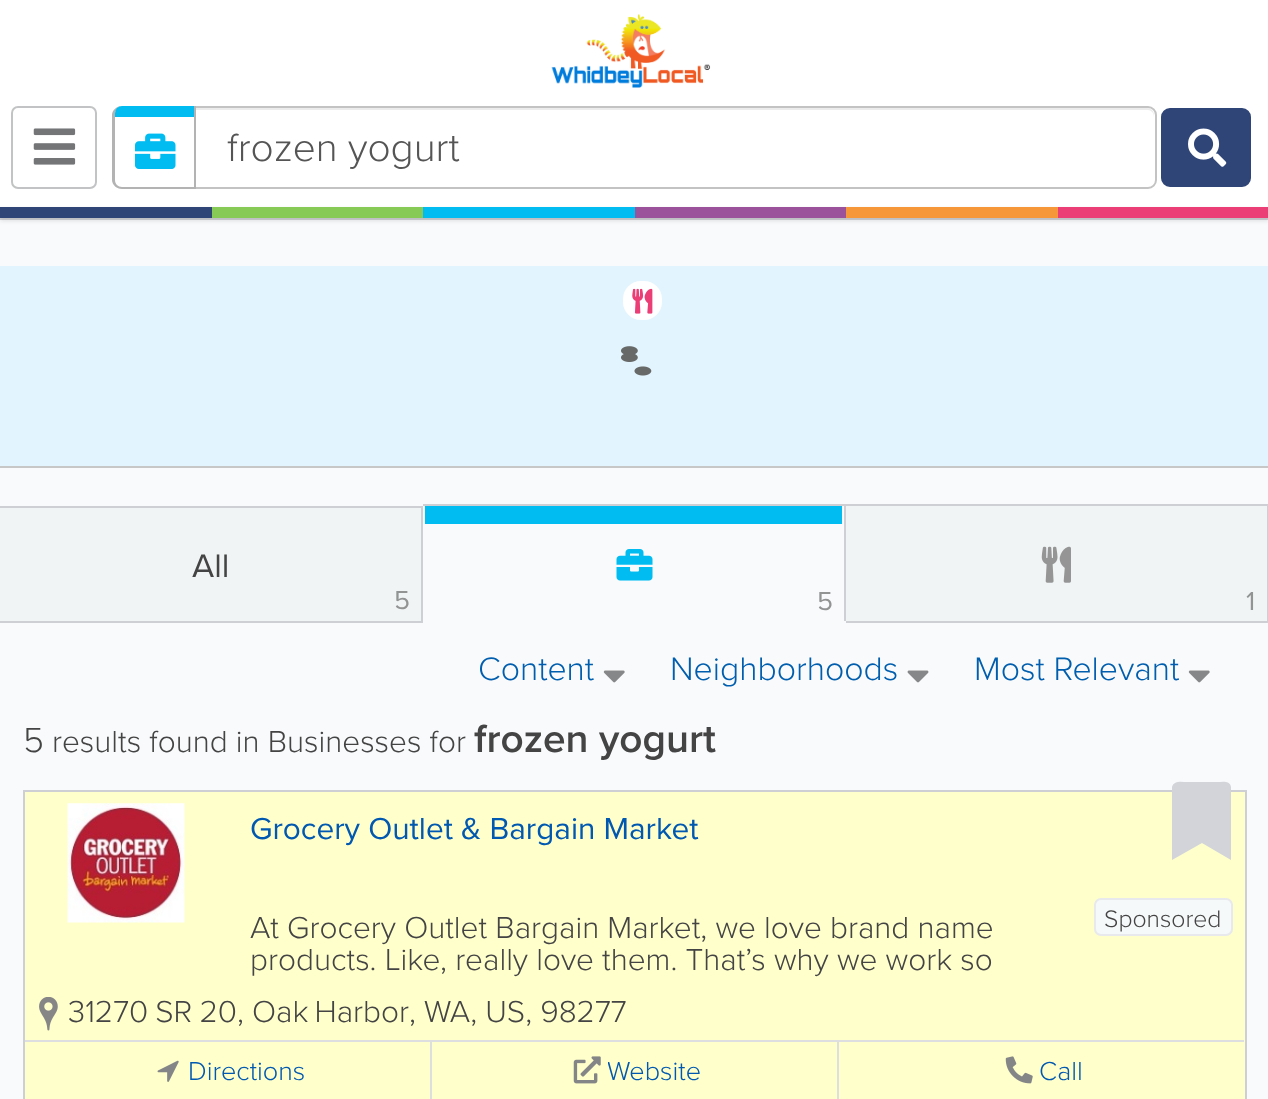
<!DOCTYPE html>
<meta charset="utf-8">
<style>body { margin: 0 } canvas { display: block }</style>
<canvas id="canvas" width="1268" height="1099"></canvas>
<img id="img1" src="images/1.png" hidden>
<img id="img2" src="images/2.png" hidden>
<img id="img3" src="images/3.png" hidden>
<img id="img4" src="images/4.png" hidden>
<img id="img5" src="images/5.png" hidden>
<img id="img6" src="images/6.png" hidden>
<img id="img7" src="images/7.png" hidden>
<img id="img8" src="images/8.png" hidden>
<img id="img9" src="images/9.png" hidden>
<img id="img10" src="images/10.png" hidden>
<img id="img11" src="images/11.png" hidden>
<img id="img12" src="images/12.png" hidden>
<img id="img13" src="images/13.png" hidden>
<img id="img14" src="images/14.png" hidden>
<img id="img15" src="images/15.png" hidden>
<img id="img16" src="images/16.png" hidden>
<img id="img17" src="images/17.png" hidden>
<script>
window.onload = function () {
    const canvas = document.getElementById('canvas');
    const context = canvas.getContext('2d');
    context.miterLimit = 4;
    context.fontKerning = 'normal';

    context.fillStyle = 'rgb(249, 250, 252)';
    context.fillRect(0, 0, 1268, 1099);
    context.fillStyle = 'rgb(255, 255, 255)';
    context.fillRect(0, 0, 1268, 207);
    context.beginPath();
    context.roundRect(12, 107, 84, 81, 6);
    context.strokeStyle = 'rgb(194, 195, 196)';
    context.lineWidth = 2;
    context.stroke();
    context.drawImage(document.getElementById('img1'), 33, 128, 43, 37);
    context.drawImage(document.getElementById('img2'), 551, 14, 160, 74);
    context.fillStyle = 'rgb(236, 236, 236)';
    context.beginPath();
    context.moveTo(122, 110);
    context.lineTo(1148, 110);
    context.bezierCurveTo(1151, 110, 1154, 113, 1154, 117);
    context.lineTo(1154, 115);
    context.bezierCurveTo(1154, 111, 1151, 108, 1147, 108);
    context.lineTo(122, 108);
    context.bezierCurveTo(118, 108, 115, 111, 115, 115);
    context.lineTo(115, 117);
    context.bezierCurveTo(115, 113, 118, 110, 122, 110);
    context.closePath();
    context.fill();
    context.beginPath();
    context.roundRect(114, 107, 1042, 81, 8);
    context.strokeStyle = 'rgb(195, 195, 195)';
    context.stroke();
    context.fillStyle = 'rgb(255, 255, 255)';
    context.beginPath();
    context.roundRect(113, 106, 83, 83, [9, 0, 0, 9]);
    context.fill();
    context.fillStyle = 'rgb(179, 179, 179)';
    context.beginPath();
    context.moveTo(122, 106);
    context.lineTo(196, 106);
    context.lineTo(196, 189);
    context.lineTo(122, 189);
    context.bezierCurveTo(117, 189, 112, 185, 112, 180);
    context.lineTo(112, 115);
    context.bezierCurveTo(112, 110, 117, 106, 122, 106);
    context.closePath();
    context.moveTo(122, 106);
    context.lineTo(194, 106);
    context.lineTo(194, 187);
    context.lineTo(122, 187);
    context.bezierCurveTo(118, 187, 115, 184, 115, 180);
    context.lineTo(115, 115);
    context.bezierCurveTo(115, 110, 118, 106, 122, 106);
    context.closePath();
    context.fill('evenodd');
    context.fillStyle = 'rgb(0, 188, 241)';
    context.beginPath();
    context.roundRect(115, 106, 79, 11, [7, 0, 0, 0]);
    context.fill();
    context.drawImage(document.getElementById('img3'), 135, 133, 41, 36);
    context.fillStyle = 'rgb(47, 69, 119)';
    context.beginPath();
    context.roundRect(1162, 109, 88, 77, 8);
    context.fill();
    context.strokeStyle = 'rgb(47, 69, 119)';
    context.stroke();
    context.drawImage(document.getElementById('img4'), 1188, 128, 39, 39);
    context.fillStyle = 'rgb(209, 211, 216)';
    context.fillRect(0, 218, 1268, 2);
    context.fillStyle = 'rgba(0, 0, 0, 0.1)';
    context.filter = 'blur(2px)';
    context.beginPath();
    context.rect(0, 209, 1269, 12);
    context.fill();
    context.filter = 'none';
    context.fillStyle = 'rgb(235, 62, 118)';
    context.fillRect(1058, 207, 210, 11);
    context.fillStyle = 'rgb(47, 69, 119)';
    context.fillRect(0, 207, 212, 11);
    context.fillStyle = 'rgb(135, 202, 86)';
    context.fillRect(212, 207, 211, 11);
    context.fillStyle = 'rgb(0, 188, 241)';
    context.fillRect(423, 207, 212, 11);
    context.fillStyle = 'rgb(156, 82, 154)';
    context.fillRect(635, 207, 211, 11);
    context.fillStyle = 'rgb(246, 151, 58)';
    context.fillRect(846, 207, 212, 11);
    context.fillStyle = 'rgb(199, 199, 199)';
    context.fillRect(0, 466, 1268, 2);
    context.fillStyle = 'rgb(226, 244, 253)';
    context.fillRect(0, 266, 1268, 200);
    context.drawImage(document.getElementById('img5'), 634, 366, 18, 10);
    context.fillStyle = 'rgb(255, 255, 255)';
    context.beginPath();
    context.roundRect(623, 281, 39, 39, 18);
    context.fill();
    context.drawImage(document.getElementById('img6'), 632, 288, 21, 26);
    context.drawImage(document.getElementById('img7'), 621, 346, 17, 9);
    context.drawImage(document.getElementById('img8'), 621, 354, 17, 8);
    context.fillStyle = 'rgb(240, 244, 245)';
    context.fillRect(0, 508, 421, 113);
    context.fillStyle = 'rgb(205, 207, 213)';
    context.fillRect(0, 506, 423, 2);
    context.fillRect(421, 506, 2, 117);
    context.fillRect(0, 621, 423, 2);
    context.fillRect(423, 504, 845, 2);
    context.fillRect(844, 504, 2, 119);
    context.fillStyle = 'rgb(249, 250, 252)';
    context.fillRect(844, 621, 2, 2);
    context.fillStyle = 'rgb(0, 188, 241)';
    context.fillRect(425, 506, 417, 18);
    context.drawImage(document.getElementById('img9'), 616, 549, 37, 32);
    context.fillStyle = 'rgb(240, 244, 245)';
    context.fillRect(846, 506, 421, 115);
    context.fillStyle = 'rgb(205, 207, 213)';
    context.fillRect(1267, 504, 1, 119);
    context.fillRect(846, 621, 422, 2);
    context.drawImage(document.getElementById('img10'), 1041, 546, 30, 37);
    context.drawImage(document.getElementById('img11'), 603, 670, 22, 13);
    context.drawImage(document.getElementById('img12'), 907, 670, 22, 13);
    context.drawImage(document.getElementById('img11'), 1188, 670, 22, 13);
    context.fillStyle = 'rgb(255, 255, 204)';
    context.beginPath();
    context.rect(24, 791, 1222, 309);
    context.fill();
    context.strokeStyle = 'rgb(205, 207, 213)';
    context.stroke();
    context.drawImage(document.getElementById('img13'), 67, 803, 118, 120);
    context.fillStyle = 'rgb(210, 212, 217)';
    context.beginPath();
    context.moveTo(1172, 860);
    context.lineTo(1172, 787);
    context.bezierCurveTo(1174, 780, 1182, 782, 1187, 782);
    context.lineTo(1217, 782);
    context.bezierCurveTo(1222, 782, 1230, 780, 1231, 787);
    context.lineTo(1231, 860);
    context.lineTo(1202, 843);
    context.closePath();
    context.fill();
    context.fillStyle = 'rgb(246, 249, 250)';
    context.beginPath();
    context.roundRect(1095, 899, 137, 36, 6);
    context.fill();
    context.strokeStyle = 'rgb(231, 233, 236)';
    context.stroke();
    context.drawImage(document.getElementById('img14'), 39, 997, 19, 34);
    context.fillStyle = 'rgb(221, 222, 223)';
    context.fillRect(25, 1040, 1219, 2);
    context.drawImage(document.getElementById('img15'), 157, 1060, 22, 22);
    context.fillRect(430, 1042, 2, 57);
    context.drawImage(document.getElementById('img16'), 573, 1056, 28, 28);
    context.fillRect(837, 1042, 2, 57);
    context.drawImage(document.getElementById('img17'), 1005, 1056, 28, 28);
    context.font = '300 40.5px Proxima Nova';
    context.fillStyle = 'rgb(85, 85, 85)';
    context.fillText('frozen yogurt', 227, 161);
    context.font = '33.75px Proxima Nova';
    context.fillStyle = 'rgb(68, 68, 68)';
    context.fillText('All', 192, 577);
    context.font = '27px Proxima Nova';
    context.fillStyle = 'rgb(146, 147, 147)';
    context.fillText('5', 394, 609);
    context.fillText('5', 817, 610);
    context.fillText('1', 1246, 610);
    context.font = '300 33.75px Proxima Nova';
    context.fillStyle = 'rgb(0, 94, 174)';
    context.fillText('Content', 478, 680);
    context.fillText('Neighborhoods', 670, 680);
    context.fillText('Most Relevant', 974, 680);
    context.font = '300 36px Proxima Nova';
    context.fillStyle = 'rgb(68, 68, 68)';
    context.fillText('5', 23, 752);
    context.font = '300 31.5px Proxima Nova';
    context.fillText('results found in Businesses for', 52, 752);
    context.font = '600 40.5px Proxima Nova';
    context.fillText('frozen yogurt', 474, 752);
    context.font = '31.5px Proxima Nova';
    context.fillStyle = 'rgb(1, 88, 176)';
    context.fillText('Grocery Outlet & Bargain Market', 250, 839);
    context.font = '300 31.5px Proxima Nova';
    context.fillStyle = 'rgb(68, 68, 68)';
    context.fillText('At Grocery Outlet Bargain Market, we love brand name', 250, 938);
    context.fillText('products. Like, really love them. That’s why we work so', 250, 970);
    context.font = '300 24.75px Proxima Nova';
    context.fillText('Sponsored', 1104, 927);
    context.wordSpacing = '-1px';
    context.font = '300 31.5px Proxima Nova';
    context.fillText('31270 SR 20', 68, 1022);
    context.wordSpacing = '0px';
    context.fillText(',', 237, 1022);
    context.wordSpacing = '-2px';
    context.fillText('Oak Harbor', 252, 1022);
    context.wordSpacing = '0px';
    context.fillText(', WA, US, 98277', 409, 1022);
    context.font = '300 27px Proxima Nova';
    context.fillStyle = 'rgb(1, 88, 176)';
    context.fillText('Directions', 188, 1080);
    context.save();
    context.beginPath();
    context.rect(608, 1058, 92, 29);
    context.clip();
    context.fillText('Website', 607, 1080);
    context.restore();
    context.fillText('Call', 1039, 1080);
};
</script>
